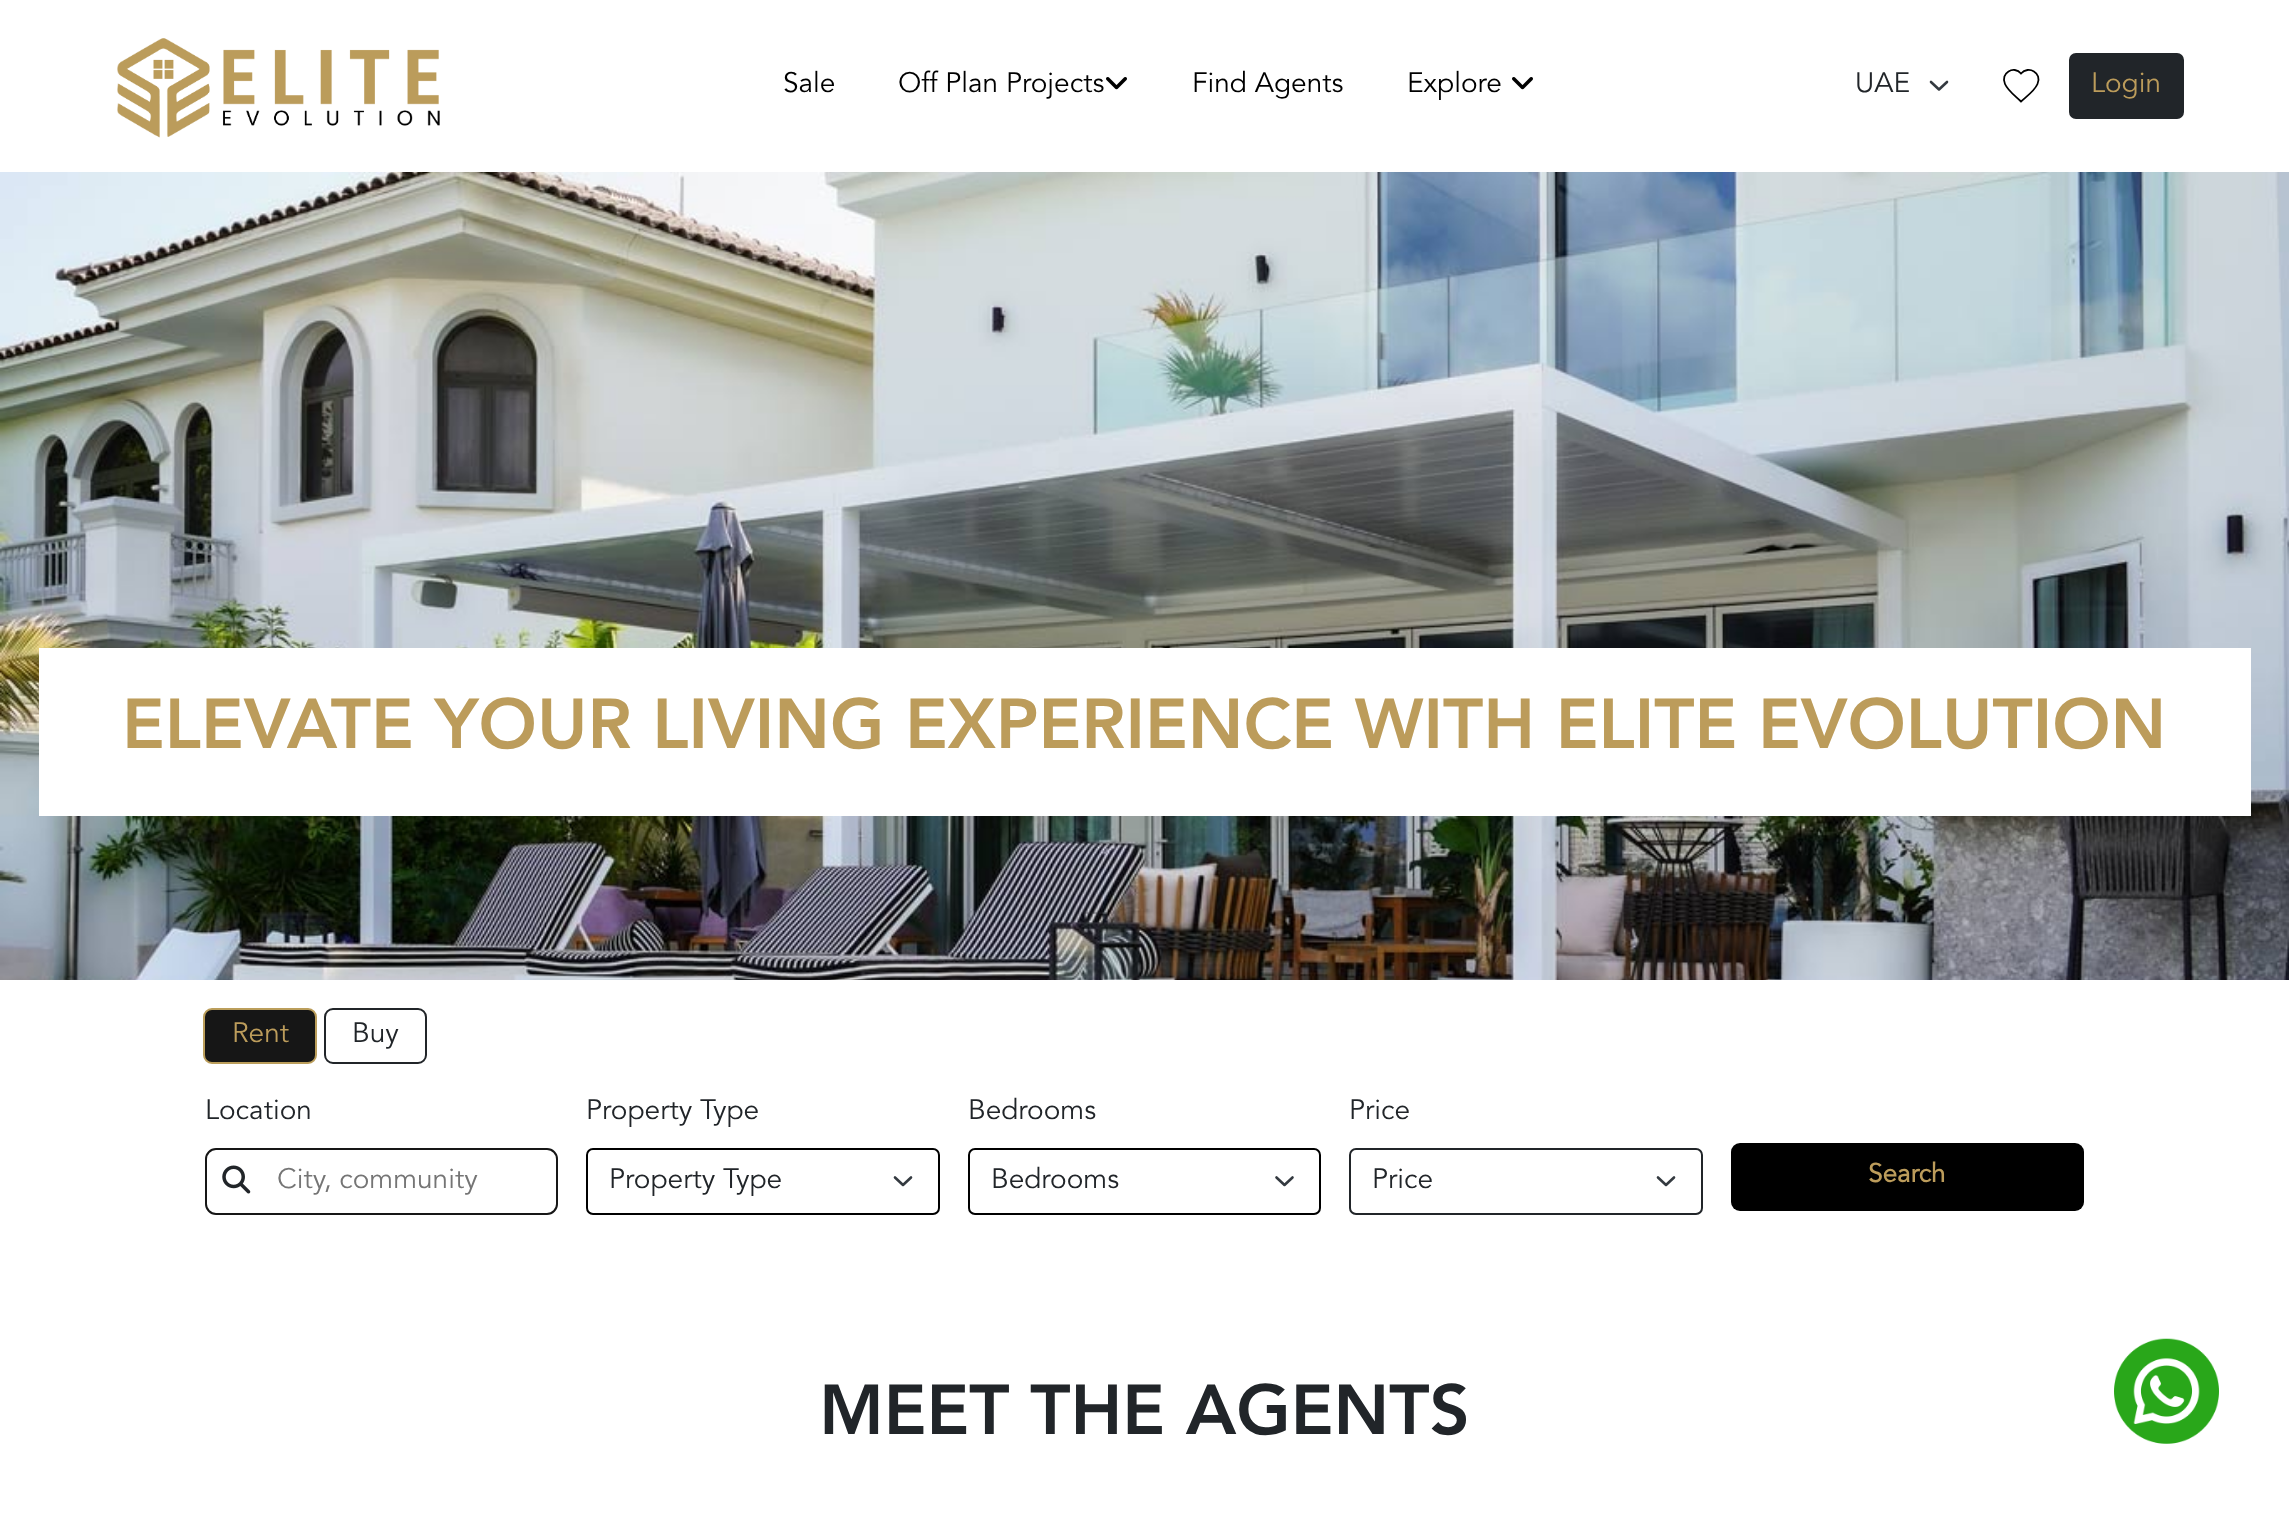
<!DOCTYPE html>
<meta charset="utf-8">
<style>body { margin: 0 } canvas { display: block }</style>
<canvas id="canvas" width="2289" height="1513"></canvas>
<img id="img1" src="images/1.png" hidden>
<img id="img2" src="images/2.png" hidden>
<img id="img3" src="images/3.png" hidden>
<img id="img4" src="images/4.png" hidden>
<img id="img5" src="images/5.png" hidden>
<script>
window.onload = function () {
    const canvas = document.getElementById('canvas');
    const context = canvas.getContext('2d');
    context.miterLimit = 4;
    context.fontKerning = 'normal';

    context.fillStyle = 'rgb(255, 255, 255)';
    context.fillRect(0, 0, 2289, 1513);
    context.drawImage(document.getElementById('img1'), 117, 38, 323, 100);
    context.drawImage(document.getElementById('img2'), 1106, 77, 21, 13);
    context.drawImage(document.getElementById('img2'), 1512, 77, 21, 13);
    context.beginPath();
    context.moveTo(1931, 82);
    context.lineTo(1939, 89.5);
    context.lineTo(1947, 82);
    context.strokeStyle = 'rgb(52, 58, 64)';
    context.lineWidth = 2.6;
    context.lineCap = 'round';
    context.lineJoin = 'round';
    context.stroke();
    context.beginPath();
    context.moveTo(2021, 101.5);
    context.bezierCurveTo(2016, 96.5, 2008, 91, 2005, 84);
    context.bezierCurveTo(2000, 73, 2014, 65, 2021, 73.5);
    context.bezierCurveTo(2028.5, 65, 2042.5, 73, 2037.5, 84);
    context.bezierCurveTo(2034.5, 91, 2026.5, 96.5, 2021, 101.5);
    context.closePath();
    context.strokeStyle = 'rgb(0, 0, 0)';
    context.lineWidth = 1.8;
    context.lineCap = 'butt';
    context.lineJoin = 'miter';
    context.stroke();
    context.fillStyle = 'rgb(33, 37, 41)';
    context.beginPath();
    context.roundRect(2070, 54, 113, 64, 6);
    context.fill();
    context.strokeStyle = 'rgb(33, 37, 41)';
    context.lineWidth = 2;
    context.stroke();
    context.drawImage(document.getElementById('img3'), 0, 172, 2289, 808);
    context.fillStyle = 'rgb(255, 255, 255)';
    context.fillRect(39, 648, 2212, 168);
    context.fillStyle = 'rgb(22, 22, 22)';
    context.beginPath();
    context.roundRect(204, 1009, 112, 54, 8);
    context.fill();
    context.strokeStyle = 'rgb(187, 158, 91)';
    context.stroke();
    context.beginPath();
    context.roundRect(325, 1009, 101, 54, 8);
    context.strokeStyle = 'rgb(33, 37, 41)';
    context.stroke();
    context.beginPath();
    context.roundRect(206, 1149, 351, 65, 10);
    context.strokeStyle = 'rgb(22, 22, 22)';
    context.stroke();
    context.drawImage(document.getElementById('img4'), 222, 1165, 29, 29);
    context.beginPath();
    context.moveTo(895, 1177.5);
    context.lineTo(903, 1185);
    context.lineTo(911, 1177.5);
    context.strokeStyle = 'rgb(52, 58, 64)';
    context.lineWidth = 2.6;
    context.lineCap = 'round';
    context.lineJoin = 'round';
    context.stroke();
    context.beginPath();
    context.roundRect(587, 1149, 352, 65, 6);
    context.strokeStyle = 'rgb(0, 0, 0)';
    context.lineWidth = 2;
    context.lineJoin = 'miter';
    context.stroke();
    context.beginPath();
    context.moveTo(1276.5, 1177.5);
    context.lineTo(1284.5, 1185);
    context.lineTo(1292.5, 1177.5);
    context.strokeStyle = 'rgb(52, 58, 64)';
    context.lineWidth = 2.6;
    context.lineJoin = 'round';
    context.stroke();
    context.beginPath();
    context.roundRect(969, 1149, 351, 65, 6);
    context.strokeStyle = 'rgb(0, 0, 0)';
    context.lineWidth = 2;
    context.lineJoin = 'miter';
    context.stroke();
    context.beginPath();
    context.moveTo(1658, 1177.5);
    context.lineTo(1666, 1185);
    context.lineTo(1674, 1177.5);
    context.strokeStyle = 'rgb(52, 58, 64)';
    context.lineWidth = 2.6;
    context.lineJoin = 'round';
    context.stroke();
    context.beginPath();
    context.roundRect(1350, 1149, 352, 65, 6);
    context.strokeStyle = 'rgb(33, 37, 41)';
    context.lineWidth = 2;
    context.lineJoin = 'miter';
    context.stroke();
    context.fillStyle = 'rgb(0, 0, 0)';
    context.beginPath();
    context.roundRect(1731, 1143, 353, 68, 9);
    context.fill();
    context.drawImage(document.getElementById('img5'), 2114, 1338, 105, 106);
    context.font = '28px Avenir';
    context.fillText('Sale', 783, 92);
    context.fillText('Off Plan Projects', 898, 92);
    context.fillText('Find Agents', 1192, 92);
    context.fillText('Explore', 1407, 92);
    context.fillStyle = 'rgb(33, 37, 41)';
    context.fillText('UAE', 1855, 92);
    context.fillStyle = 'rgb(188, 156, 91)';
    context.fillText('Login', 2091, 92);
    context.font = '900 70px Avenir';
    context.fillText('ELEVATE YOUR LIVING EXPERIENCE WITH ELITE EVOLUTION', 122, 748);
    context.font = '28px Avenir';
    context.fillText('Rent', 232, 1042);
    context.fillStyle = 'rgb(33, 37, 41)';
    context.fillText('Buy', 352, 1042);
    context.fillText('Location', 205, 1119);
    context.fillStyle = 'rgb(117, 117, 117)';
    context.fillText('City, community', 277, 1188);
    context.fillStyle = 'rgb(33, 37, 41)';
    context.fillText('Property Type', 586, 1119);
    context.fillText('Property Type', 609, 1188);
    context.fillText('Bedrooms', 968, 1119);
    context.fillText('Bedrooms', 991, 1188);
    context.fillText('Price', 1349, 1119);
    context.fillText('Price', 1372, 1188);
    context.font = 'bold 26px Avenir';
    context.fillStyle = 'rgb(188, 156, 91)';
    context.fillText('Search', 1868, 1182);
    context.font = '900 70px Avenir';
    context.fillStyle = 'rgb(33, 37, 41)';
    context.fillText('MEET THE AGENTS', 819, 1434);
};
</script>
